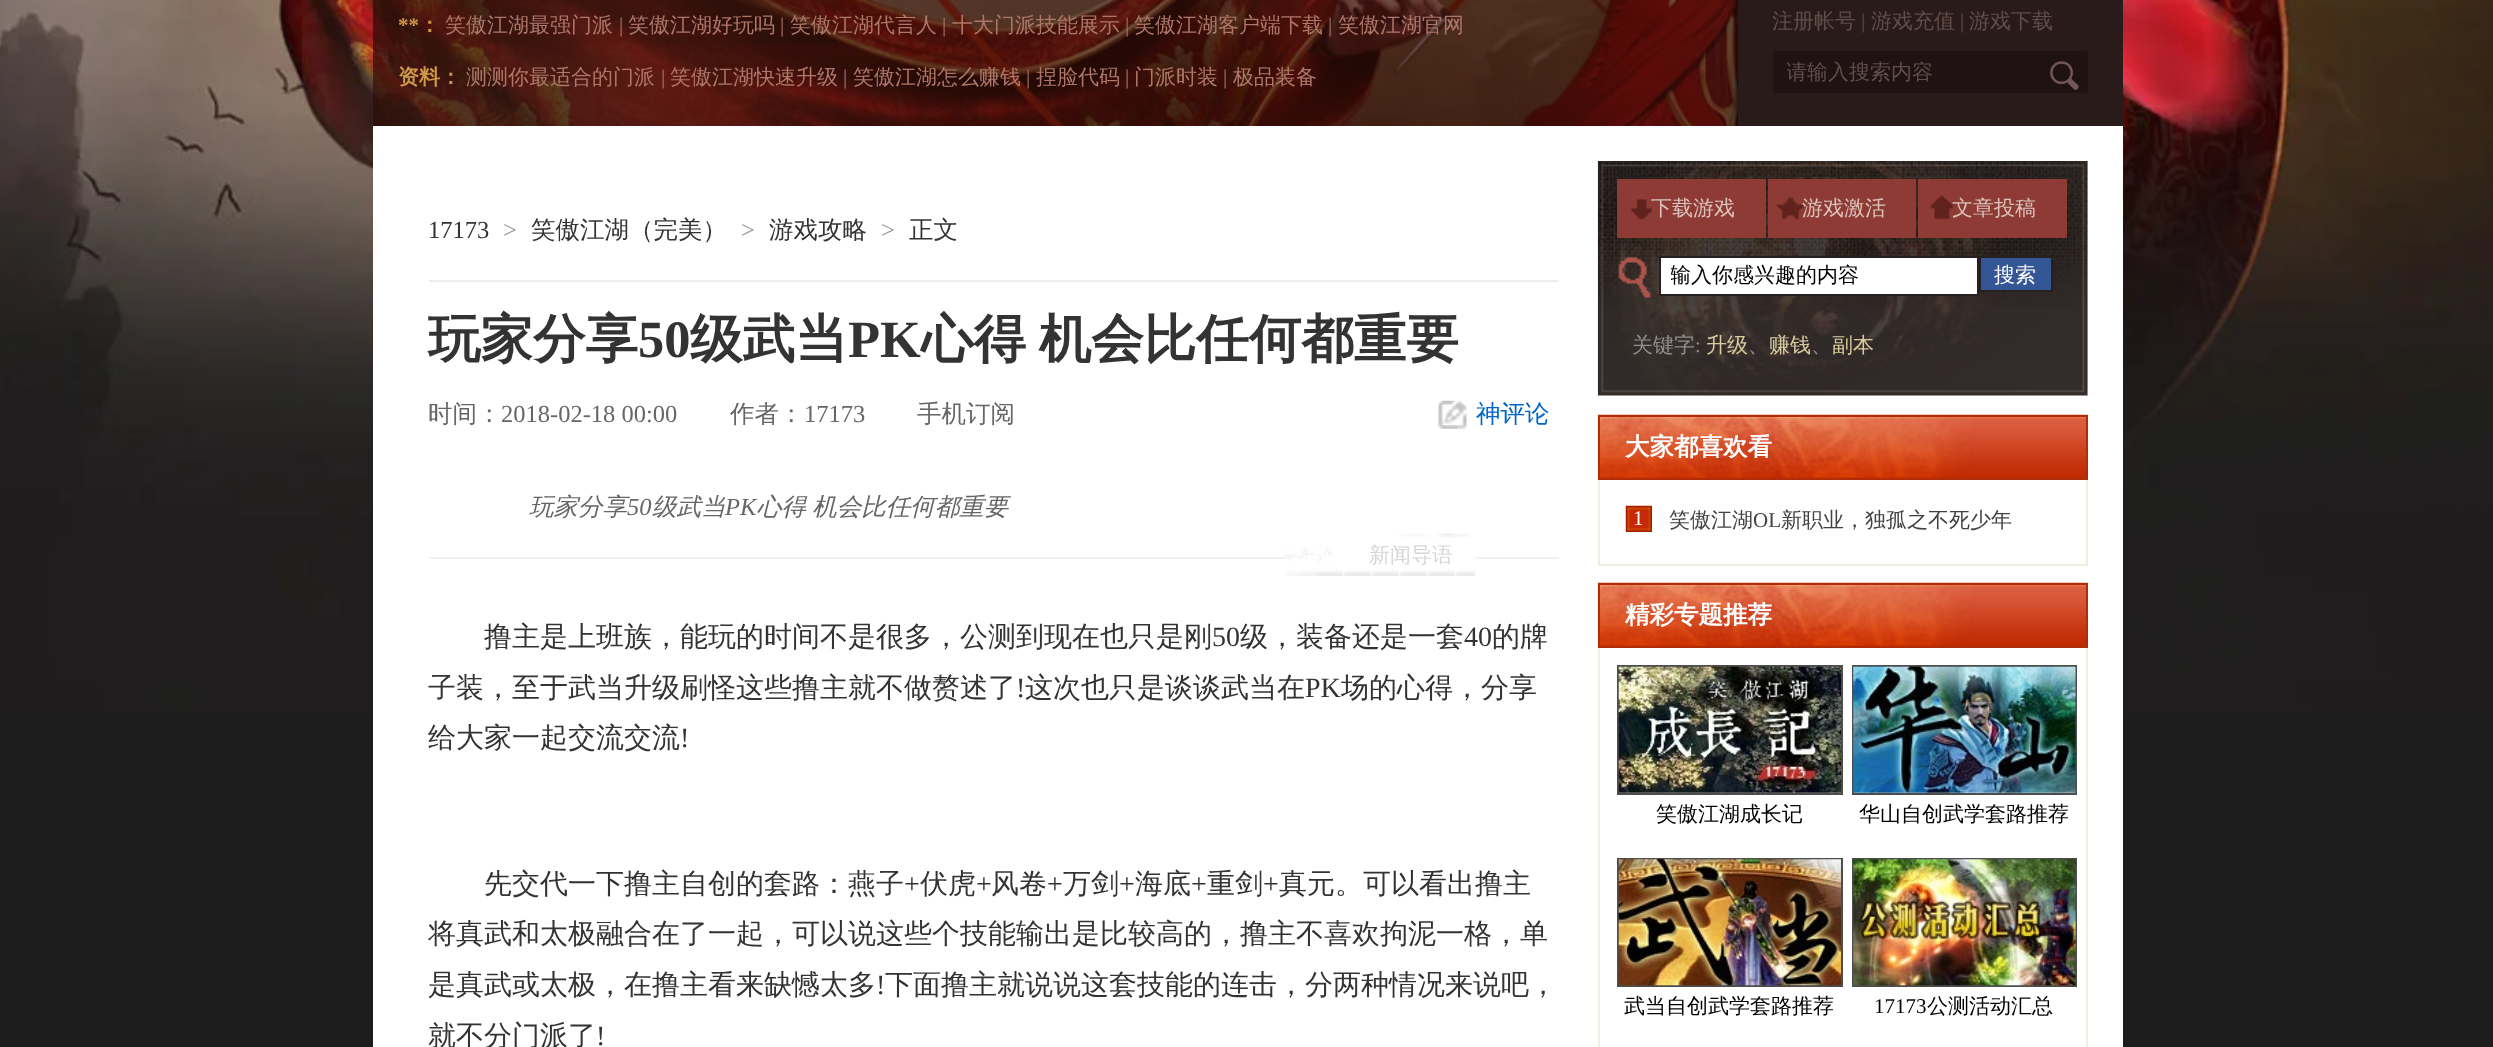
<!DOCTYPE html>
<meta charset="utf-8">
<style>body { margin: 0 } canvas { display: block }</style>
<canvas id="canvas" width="2493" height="1047"></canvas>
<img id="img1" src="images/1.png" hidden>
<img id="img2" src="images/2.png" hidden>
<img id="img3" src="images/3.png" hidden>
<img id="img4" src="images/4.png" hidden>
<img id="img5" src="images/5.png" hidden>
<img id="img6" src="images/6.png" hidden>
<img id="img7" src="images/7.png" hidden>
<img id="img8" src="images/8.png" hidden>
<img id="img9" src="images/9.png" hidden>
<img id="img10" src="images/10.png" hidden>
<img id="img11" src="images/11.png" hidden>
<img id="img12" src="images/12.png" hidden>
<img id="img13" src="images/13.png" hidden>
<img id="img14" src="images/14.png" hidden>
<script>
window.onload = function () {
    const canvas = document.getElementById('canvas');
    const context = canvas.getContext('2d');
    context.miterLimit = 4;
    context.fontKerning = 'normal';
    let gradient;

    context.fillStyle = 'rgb(30, 29, 29)';
    context.fillRect(0, 0, 2493, 1047);
    context.drawImage(document.getElementById('img1'), 0, 0, 2493, 713);
    context.fillStyle = 'rgba(44, 11, 6, 0.7)';
    context.fillRect(373, 0, 1365, 126);
    context.fillStyle = 'rgb(41, 27, 25)';
    context.fillRect(1738, 0, 385, 126);
    gradient = context.createLinearGradient(1727, 17, 1738, 17);
    gradient.addColorStop(0, 'rgba(0, 0, 0, 0)');
    gradient.addColorStop(0.6, 'rgba(0, 0, 0, 0.2)');
    gradient.addColorStop(1, 'rgba(0, 0, 0, 0.6)');
    context.fillStyle = gradient;
    context.fillRect(1728, 0, 10, 126);
    context.fillStyle = 'rgb(30, 19, 18)';
    context.beginPath();
    context.roundRect(1773, 51, 315, 42, 4);
    context.fill();
    context.fillStyle = 'rgb(255, 255, 255)';
    context.fillRect(373, 126, 1750, 921);
    context.fillStyle = 'rgb(237, 237, 237)';
    context.fillRect(429, 280, 1130, 2);
    context.drawImage(document.getElementById('img2'), 1438, 400, 29, 29);
    context.fillStyle = 'rgb(241, 241, 241)';
    context.fillRect(429, 557, 1130, 2);
    context.drawImage(document.getElementById('img3'), 1286, 533, 190, 43);
    context.drawImage(document.getElementById('img4'), 1597, 161, 491, 235);
    context.fillStyle = 'rgb(141, 59, 52)';
    context.fillRect(1617, 179, 149, 59);
    context.drawImage(document.getElementById('img5'), 1631, 199, 21, 21);
    context.fillRect(1768, 179, 148, 59);
    context.drawImage(document.getElementById('img6'), 1776, 197, 29, 23);
    context.fillRect(1918, 179, 149, 59);
    context.drawImage(document.getElementById('img7'), 1930, 195, 24, 25);
    context.drawImage(document.getElementById('img8'), 1618, 256, 33, 42);
    context.fillStyle = 'rgb(255, 255, 255)';
    context.beginPath();
    context.rect(1660, 257, 318, 38);
    context.fill();
    context.strokeStyle = 'rgb(38, 33, 31)';
    context.lineWidth = 2;
    context.stroke();
    context.fillStyle = 'rgb(53, 86, 149)';
    context.beginPath();
    context.rect(1980, 257, 72, 34);
    context.fill();
    context.stroke();
    context.drawImage(document.getElementById('img9'), 1597, 414, 491, 66);
    context.strokeStyle = 'rgb(177, 44, 8)';
    context.strokeRect(1599, 416, 488, 63);
    context.fillStyle = 'rgb(241, 237, 224)';
    context.fillRect(2086, 480, 2, 85);
    context.fillRect(1598, 564, 490, 2);
    context.fillRect(1598, 480, 2, 85);
    context.drawImage(document.getElementById('img10'), 1625, 505, 27, 27);
    context.drawImage(document.getElementById('img9'), 1597, 582, 491, 66);
    context.strokeRect(1599, 584, 488, 63);
    context.fillRect(2086, 648, 2, 399);
    context.fillRect(1598, 648, 2, 399);
    context.strokeStyle = 'rgb(77, 77, 77)';
    context.strokeRect(1618, 666, 224, 128);
    context.drawImage(document.getElementById('img11'), 1618, 666, 223, 127);
    context.strokeRect(1853, 666, 223, 128);
    context.drawImage(document.getElementById('img12'), 1853, 666, 223, 127);
    context.strokeRect(1618, 859, 224, 127);
    context.drawImage(document.getElementById('img13'), 1618, 859, 223, 127);
    context.strokeRect(1853, 859, 223, 127);
    context.drawImage(document.getElementById('img14'), 1853, 859, 223, 127);
    context.font = 'bold 21px Liberation Serif';
    context.fillStyle = 'rgb(207, 154, 71)';
    context.fillText('**', 398, 32);
    context.font = 'bold 21px WenQuanYi Zen Hei';
    context.fillText('：', 419, 32);
    context.font = '500 21px WenQuanYi Zen Hei';
    context.fillStyle = 'rgb(174, 119, 106)';
    context.fillText('笑傲江湖最强门派', 445, 32);
    context.font = '21px Liberation Serif';
    context.fillText('|', 619, 32);
    context.font = '500 21px WenQuanYi Zen Hei';
    context.fillText('笑傲江湖好玩吗', 628, 32);
    context.font = '21px Liberation Serif';
    context.fillText('|', 780, 32);
    context.font = '500 21px WenQuanYi Zen Hei';
    context.fillText('笑傲江湖代言人', 790, 32);
    context.font = '21px Liberation Serif';
    context.fillText('|', 942, 32);
    context.font = '500 21px WenQuanYi Zen Hei';
    context.fillText('十大门派技能展示', 952, 32);
    context.font = '21px Liberation Serif';
    context.fillText('|', 1125, 32);
    context.font = '500 21px WenQuanYi Zen Hei';
    context.fillText('笑傲江湖客户端下载', 1134, 32);
    context.font = '21px Liberation Serif';
    context.fillText('|', 1328, 32);
    context.font = '500 21px WenQuanYi Zen Hei';
    context.fillText('笑傲江湖官网', 1338, 32);
    context.font = 'bold 21px WenQuanYi Zen Hei';
    context.fillStyle = 'rgb(207, 154, 71)';
    context.fillText('资料：', 398, 84);
    context.font = '500 21px WenQuanYi Zen Hei';
    context.fillStyle = 'rgb(174, 119, 106)';
    context.fillText('测测你最适合的门派', 466, 84);
    context.font = '21px Liberation Serif';
    context.fillText('|', 661, 84);
    context.font = '500 21px WenQuanYi Zen Hei';
    context.fillText('笑傲江湖快速升级', 670, 84);
    context.font = '21px Liberation Serif';
    context.fillText('|', 843, 84);
    context.font = '500 21px WenQuanYi Zen Hei';
    context.fillText('笑傲江湖怎么赚钱', 853, 84);
    context.font = '21px Liberation Serif';
    context.fillText('|', 1026, 84);
    context.font = '500 21px WenQuanYi Zen Hei';
    context.fillText('捏脸代码', 1036, 84);
    context.font = '21px Liberation Serif';
    context.fillText('|', 1125, 84);
    context.font = '500 21px WenQuanYi Zen Hei';
    context.fillText('门派时装', 1134, 84);
    context.font = '21px Liberation Serif';
    context.fillText('|', 1223, 84);
    context.font = '500 21px WenQuanYi Zen Hei';
    context.fillText('极品装备', 1233, 84);
    context.fillStyle = 'rgb(98, 77, 74)';
    context.fillText('注册帐号', 1772, 28);
    context.font = '21px Liberation Serif';
    context.fillText('|', 1861, 28);
    context.font = '500 21px WenQuanYi Zen Hei';
    context.fillText('游戏充值', 1871, 28);
    context.font = '21px Liberation Serif';
    context.fillText('|', 1960, 28);
    context.font = '500 21px WenQuanYi Zen Hei';
    context.fillText('游戏下载', 1969, 28);
    context.save();
    context.beginPath();
    context.rect(1787, 51, 252, 42);
    context.clip();
    context.fillText('请输入搜索内容', 1786, 79);
    context.restore();
    context.font = '42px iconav';
    context.fillStyle = 'rgb(112, 86, 84)';
    context.fillText('*', 2043, 96);
    context.font = '24.5px Liberation Serif';
    context.fillStyle = 'rgb(51, 51, 51)';
    context.fillText('17173', 428, 238);
    context.fillStyle = 'rgb(152, 152, 152)';
    context.fillText('>', 503, 238);
    context.font = '500 24.5px WenQuanYi Zen Hei';
    context.fillStyle = 'rgb(51, 51, 51)';
    context.fillText('笑傲江湖（完美）', 531, 238);
    context.font = '24.5px Liberation Serif';
    context.fillStyle = 'rgb(152, 152, 152)';
    context.fillText('>', 741, 238);
    context.font = '500 24.5px WenQuanYi Zen Hei';
    context.fillStyle = 'rgb(51, 51, 51)';
    context.fillText('游戏攻略', 769, 238);
    context.font = '24.5px Liberation Serif';
    context.fillStyle = 'rgb(152, 152, 152)';
    context.fillText('>', 881, 238);
    context.font = '500 24.5px WenQuanYi Zen Hei';
    context.fillStyle = 'rgb(51, 51, 51)';
    context.fillText('正文', 909, 238);
    context.font = 'bold 52.5px WenQuanYi Zen Hei';
    context.fillText('玩家分享', 428, 357);
    context.font = 'bold 52.5px Liberation Serif';
    context.fillText('50', 638, 357);
    context.font = 'bold 52.5px WenQuanYi Zen Hei';
    context.fillText('级武当', 690, 357);
    context.font = 'bold 52.5px Liberation Serif';
    context.fillText('PK', 848, 357);
    context.wordSpacing = '-3px';
    context.font = 'bold 52.5px WenQuanYi Zen Hei';
    context.fillText('心得 机会比任何都重要', 921, 357);
    context.wordSpacing = '0px';
    context.font = '500 24.5px WenQuanYi Zen Hei';
    context.fillStyle = 'rgb(102, 102, 102)';
    context.fillText('时间：', 428, 422);
    context.font = '24.5px Liberation Serif';
    context.fillText('2018-02-18 00:00', 501, 422);
    context.font = '500 24.5px WenQuanYi Zen Hei';
    context.fillText('作者：', 730, 422);
    context.font = '24.5px Liberation Serif';
    context.fillText('17173', 804, 422);
    context.font = '500 24.5px WenQuanYi Zen Hei';
    context.fillText('手机订阅', 917, 422);
    context.fillStyle = 'rgb(0, 102, 204)';
    context.fillText('神评论', 1476, 422);
    context.font = 'italic 500 24.5px WenQuanYi Zen Hei';
    context.fillStyle = 'rgb(102, 102, 102)';
    context.fillText('玩家分享', 529, 515);
    context.font = 'italic 24.5px Liberation Serif';
    context.fillText('50', 627, 515);
    context.font = 'italic 500 24.5px WenQuanYi Zen Hei';
    context.fillText('级武当', 652, 515);
    context.font = 'italic 24.5px Liberation Serif';
    context.fillText('PK', 725, 515);
    context.wordSpacing = '-1px';
    context.font = 'italic 500 24.5px WenQuanYi Zen Hei';
    context.fillText('心得 机会比任何都重要', 757, 515);
    context.wordSpacing = '0px';
    context.font = '500 21px WenQuanYi Zen Hei';
    context.fillStyle = 'rgb(215, 215, 215)';
    context.fillText('新闻导语', 1369, 562);
    context.font = '500 28px WenQuanYi Zen Hei';
    context.fillStyle = 'rgb(51, 51, 51)';
    context.fillText('撸主是上班族，能玩的时间不是很多，公测到现在也只是刚', 484, 646);
    context.font = '28px Liberation Serif';
    context.fillText('50', 1212, 646);
    context.font = '500 28px WenQuanYi Zen Hei';
    context.fillText('级，装备还是一套', 1240, 646);
    context.font = '28px Liberation Serif';
    context.fillText('40', 1464, 646);
    context.font = '500 28px WenQuanYi Zen Hei';
    context.fillText('的牌', 1492, 646);
    context.fillText('子装，至于武当升级刷怪这些撸主就不做赘述了', 428, 697);
    context.font = '28px Liberation Serif';
    context.fillText('!', 1016, 697);
    context.font = '500 28px WenQuanYi Zen Hei';
    context.fillText('这次也只是谈谈武当在', 1025, 697);
    context.font = '28px Liberation Serif';
    context.fillText('PK', 1305, 697);
    context.font = '500 28px WenQuanYi Zen Hei';
    context.fillText('场的心得，分享', 1341, 697);
    context.fillText('给大家一起交流交流', 428, 747);
    context.font = '28px Liberation Serif';
    context.fillText('!', 680, 747);
    context.font = '500 28px WenQuanYi Zen Hei';
    context.fillText('先交代一下撸主自创的套路：燕子', 484, 893);
    context.font = '28px Liberation Serif';
    context.fillText('+', 904, 893);
    context.font = '500 28px WenQuanYi Zen Hei';
    context.fillText('伏虎', 920, 893);
    context.font = '28px Liberation Serif';
    context.fillText('+', 976, 893);
    context.font = '500 28px WenQuanYi Zen Hei';
    context.fillText('风卷', 991, 893);
    context.font = '28px Liberation Serif';
    context.fillText('+', 1047, 893);
    context.font = '500 28px WenQuanYi Zen Hei';
    context.fillText('万剑', 1063, 893);
    context.font = '28px Liberation Serif';
    context.fillText('+', 1119, 893);
    context.font = '500 28px WenQuanYi Zen Hei';
    context.fillText('海底', 1135, 893);
    context.font = '28px Liberation Serif';
    context.fillText('+', 1191, 893);
    context.font = '500 28px WenQuanYi Zen Hei';
    context.fillText('重剑', 1207, 893);
    context.font = '28px Liberation Serif';
    context.fillText('+', 1263, 893);
    context.font = '500 28px WenQuanYi Zen Hei';
    context.fillText('真元。可以看出撸主', 1279, 893);
    context.fillText('将真武和太极融合在了一起，可以说这些个技能输出是比较高的，撸主不喜欢拘泥一格，单', 428, 943);
    context.fillText('是真武或太极，在撸主看来缺憾太多', 428, 994);
    context.font = '28px Liberation Serif';
    context.fillText('!', 876, 994);
    context.font = '500 28px WenQuanYi Zen Hei';
    context.fillText('下面撸主就说说这套技能的连击，分两种情况来说吧，', 885, 994);
    context.fillText('就不分门派了', 428, 1045);
    context.font = '28px Liberation Serif';
    context.fillText('!', 596, 1045);
    context.font = '500 21px WenQuanYi Zen Hei';
    context.fillStyle = 'rgb(221, 194, 189)';
    context.fillText('下载游戏', 1651, 215);
    context.fillText('游戏激活', 1802, 215);
    context.fillText('文章投稿', 1952, 215);
    context.save();
    context.beginPath();
    context.rect(1671, 257, 307, 37);
    context.clip();
    context.fillStyle = 'rgb(0, 0, 0)';
    context.fillText('输入你感兴趣的内容', 1670, 282);
    context.restore();
    context.fillStyle = 'rgb(255, 255, 255)';
    context.fillText('搜索', 1994, 282);
    context.fillStyle = 'rgb(144, 144, 144)';
    context.fillText('关键字', 1632, 352);
    context.font = '21px Liberation Serif';
    context.fillText(':', 1695, 352);
    context.font = '500 21px WenQuanYi Zen Hei';
    context.fillStyle = 'rgb(215, 204, 159)';
    context.fillText('升级', 1706, 352);
    context.fillStyle = 'rgb(144, 144, 144)';
    context.fillText('、', 1748, 352);
    context.fillStyle = 'rgb(215, 204, 159)';
    context.fillText('赚钱', 1769, 352);
    context.fillStyle = 'rgb(144, 144, 144)';
    context.fillText('、', 1811, 352);
    context.fillStyle = 'rgb(215, 204, 159)';
    context.fillText('副本', 1832, 352);
    context.font = 'bold 24.5px WenQuanYi Zen Hei';
    context.fillStyle = 'rgb(255, 255, 255)';
    context.fillText('大家都喜欢看', 1625, 455);
    context.font = '21px Liberation Serif';
    context.fillText('1', 1633, 525);
    context.font = '500 21px WenQuanYi Zen Hei';
    context.fillStyle = 'rgb(66, 66, 66)';
    context.fillText('笑傲江湖', 1669, 527);
    context.font = '21px Liberation Serif';
    context.fillText('OL', 1753, 527);
    context.font = '500 21px WenQuanYi Zen Hei';
    context.fillText('新职业，独孤之不死少年', 1781, 527);
    context.font = 'bold 24.5px WenQuanYi Zen Hei';
    context.fillStyle = 'rgb(255, 255, 255)';
    context.fillText('精彩专题推荐', 1625, 623);
    context.font = '500 21px WenQuanYi Zen Hei';
    context.fillStyle = 'rgb(0, 0, 0)';
    context.fillText('笑傲江湖成长记', 1656, 821);
    context.fillText('华山自创武学套路推荐', 1859, 821);
    context.fillText('武当自创武学套路推荐', 1624, 1013);
    context.font = '21px Liberation Serif';
    context.fillText('17173', 1874, 1013);
    context.font = '500 21px WenQuanYi Zen Hei';
    context.fillText('公测活动汇总', 1927, 1013);
};
</script>
